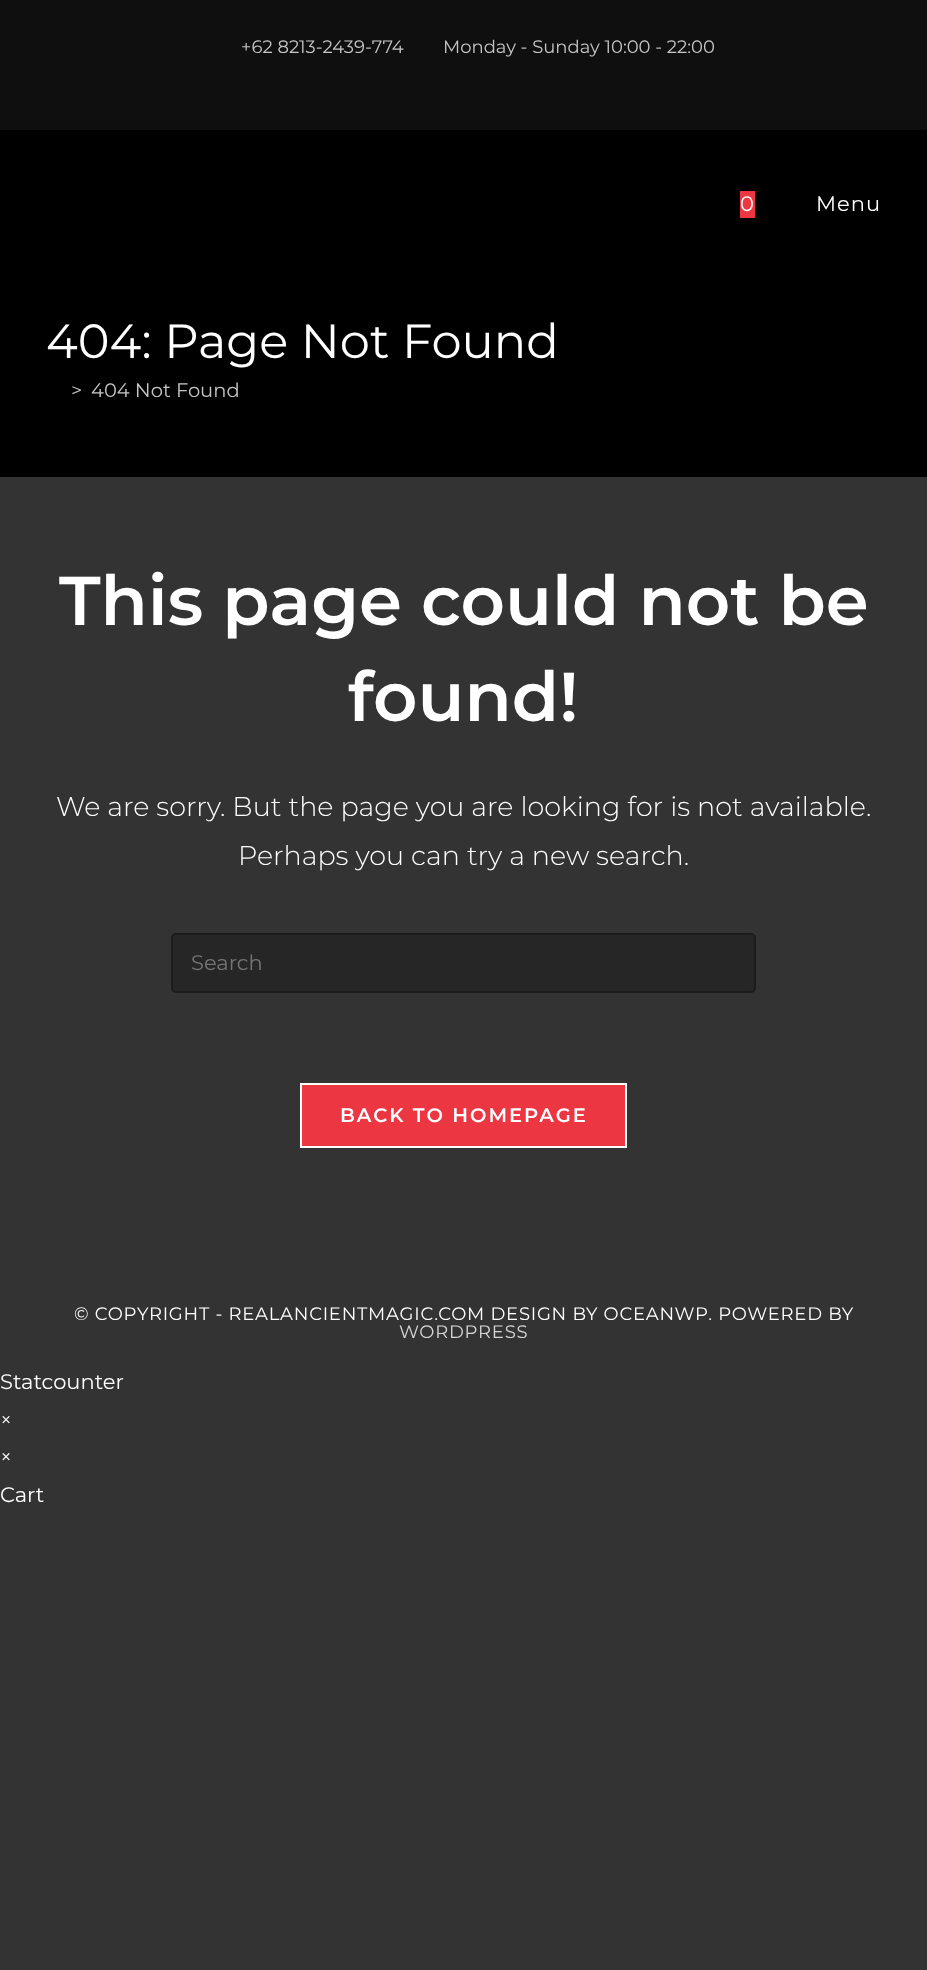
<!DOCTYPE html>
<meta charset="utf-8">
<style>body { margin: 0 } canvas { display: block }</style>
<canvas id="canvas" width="927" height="1970"></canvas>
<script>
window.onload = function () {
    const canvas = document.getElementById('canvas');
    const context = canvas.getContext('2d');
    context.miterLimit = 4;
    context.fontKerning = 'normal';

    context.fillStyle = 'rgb(51, 51, 51)';
    context.fillRect(0, 0, 927, 1970);
    context.fillStyle = 'rgb(15, 15, 15)';
    context.fillRect(0, 0, 927, 130);
    context.fillStyle = 'rgb(0, 0, 0)';
    context.fillRect(0, 130, 927, 347);
    context.fillStyle = 'rgb(236, 54, 66)';
    context.fillRect(740, 191, 15, 27);
    context.fillStyle = 'rgb(38, 38, 38)';
    context.beginPath();
    context.roundRect(172, 934, 583, 58, 4);
    context.fill();
    context.strokeStyle = 'rgb(28, 28, 28)';
    context.lineWidth = 2;
    context.stroke();
    context.fillStyle = 'rgb(236, 54, 66)';
    context.beginPath();
    context.rect(301, 1084, 325, 63);
    context.fill();
    context.strokeStyle = 'rgb(255, 255, 255)';
    context.stroke();
    context.font = '18px Montserrat';
    context.fillStyle = 'rgb(198, 198, 198)';
    context.fillText('+62 8213-2439-774', 241, 53);
    context.fillText('Monday - Sunday 10:00 - 22:00', 443, 53);
    context.letterSpacing = '1px';
    context.font = '21px Montserrat';
    context.fillStyle = 'rgb(255, 255, 255)';
    context.fillText('0', 740, 211);
    context.fillText('Menu', 816, 211);
    context.letterSpacing = '0px';
    context.font = '48px Montserrat';
    context.fillText('404: Page Not Found', 46, 358);
    context.font = '19.5px Montserrat';
    context.fillStyle = 'rgb(198, 198, 198)';
    context.fillText('>', 71, 397);
    context.fillText('404 Not Found', 91, 397);
    context.font = '600 69px Montserrat';
    context.fillStyle = 'rgb(255, 255, 255)';
    context.fillText('This page could not be', 59, 625);
    context.fillText('found!', 348, 721);
    context.font = '300 27px Montserrat';
    context.fillText('We are sorry. But the page you are looking for is not available.', 56, 816);
    context.fillText('Perhaps you can try a new search.', 238, 865);
    context.font = '21px Montserrat';
    context.fillStyle = 'rgb(117, 117, 117)';
    context.fillText('Search', 191, 970);
    context.letterSpacing = '2px';
    context.font = '600 19.5px Montserrat';
    context.fillStyle = 'rgb(255, 255, 255)';
    context.fillText('BACK TO HOMEPAGE', 340, 1122);
    context.letterSpacing = '0.75px';
    context.font = '18px Montserrat';
    context.fillText('© COPYRIGHT - REALANCIENTMAGIC.COM DESIGN BY OCEANWP. POWERED BY', 74, 1320);
    context.fillStyle = 'rgb(214, 214, 214)';
    context.fillText('WORDPRESS', 399, 1338);
    context.letterSpacing = '0px';
    context.font = '21px Montserrat';
    context.fillStyle = 'rgb(255, 255, 255)';
    context.fillText('Statcounter', 0, 1389);
    context.fillText('×', 0, 1427);
    context.fillText('×', 0, 1464);
    context.fillText('Cart', 0, 1502);
};
</script>
